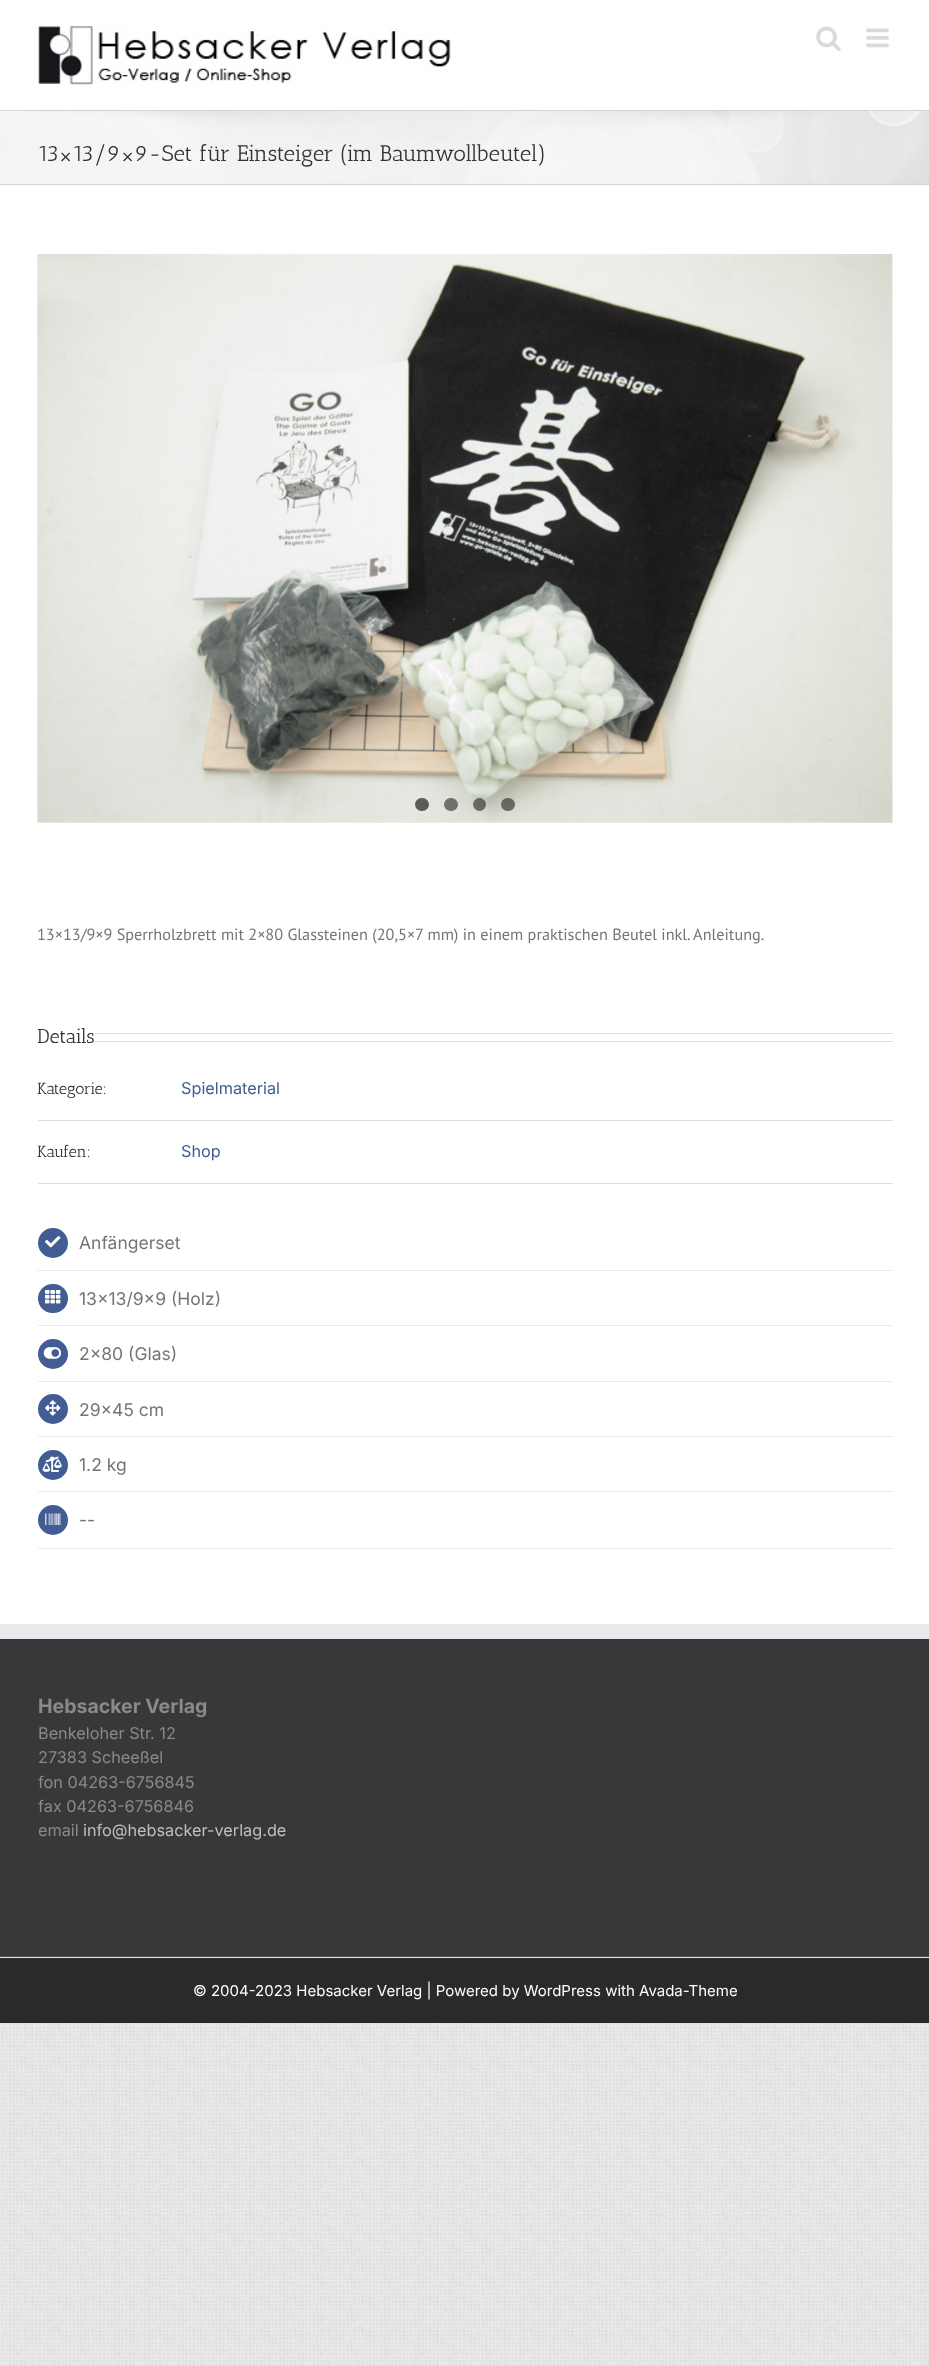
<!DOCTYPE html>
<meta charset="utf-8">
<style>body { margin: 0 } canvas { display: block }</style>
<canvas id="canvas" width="929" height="2366"></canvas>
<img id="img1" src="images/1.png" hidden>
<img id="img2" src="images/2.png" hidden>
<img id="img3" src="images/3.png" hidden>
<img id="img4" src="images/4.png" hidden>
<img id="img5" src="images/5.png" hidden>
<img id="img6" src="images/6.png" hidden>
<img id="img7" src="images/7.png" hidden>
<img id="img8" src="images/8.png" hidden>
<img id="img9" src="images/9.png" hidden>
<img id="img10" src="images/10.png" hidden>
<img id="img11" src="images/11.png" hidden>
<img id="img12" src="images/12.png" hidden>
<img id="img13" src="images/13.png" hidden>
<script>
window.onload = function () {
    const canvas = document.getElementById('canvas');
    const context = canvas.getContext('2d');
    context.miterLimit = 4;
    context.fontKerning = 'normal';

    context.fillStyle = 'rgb(255, 255, 255)';
    context.fillRect(0, 0, 929, 2366);
    context.drawImage(document.getElementById('img1'), 0, 2023, 929, 343);
    context.drawImage(document.getElementById('img2'), 0, 1957, 929, 1);
    context.drawImage(document.getElementById('img3'), 38, 26, 413, 59);
    context.drawImage(document.getElementById('img4'), 816, 26, 25, 25);
    context.drawImage(document.getElementById('img5'), 866, 28, 23, 20);
    context.fillStyle = 'rgb(246, 246, 246)';
    context.fillRect(0, 111, 929, 73);
    context.drawImage(document.getElementById('img6'), 0, 111, 929, 73);
    context.fillStyle = 'rgb(210, 211, 212)';
    context.fillRect(0, 110, 929, 1);
    context.fillRect(0, 184, 929, 1);
    context.drawImage(document.getElementById('img7'), 37, 254, 856, 569);
    context.fillStyle = 'rgba(0, 0, 0, 0.6)';
    context.beginPath();
    context.roundRect(415, 798, 14, 13, 6.5);
    context.fill();
    context.fillStyle = 'rgba(0, 0, 0, 0.5)';
    context.beginPath();
    context.roundRect(444, 798, 14, 13, 6.5);
    context.fill();
    context.beginPath();
    context.arc(479.5, 804.5, 6.5, 0, 2 * Math.PI);
    context.fill();
    context.beginPath();
    context.roundRect(501, 798, 14, 13, 6.5);
    context.fill();
    context.fillStyle = 'rgb(224, 222, 222)';
    context.fillRect(95, 1033, 798, 1);
    context.fillRect(95, 1041, 798, 1);
    context.fillRect(38, 1120, 855, 1);
    context.fillRect(38, 1183, 855, 1);
    context.fillStyle = 'rgb(235, 234, 234)';
    context.fillRect(38, 1270, 855, 1);
    context.fillStyle = 'rgb(65, 93, 147)';
    context.beginPath();
    context.arc(53, 1243, 15, 0, 2 * Math.PI);
    context.fill();
    context.drawImage(document.getElementById('img8'), 45, 1236, 16, 12);
    context.fillStyle = 'rgb(235, 234, 234)';
    context.fillRect(38, 1325, 855, 1);
    context.fillStyle = 'rgb(65, 93, 147)';
    context.beginPath();
    context.roundRect(38, 1284, 30, 29, 14.5);
    context.fill();
    context.drawImage(document.getElementById('img9'), 45, 1290, 16, 14);
    context.fillStyle = 'rgb(235, 234, 234)';
    context.fillRect(38, 1381, 855, 1);
    context.fillStyle = 'rgb(65, 93, 147)';
    context.beginPath();
    context.arc(53, 1354, 15, 0, 2 * Math.PI);
    context.fill();
    context.drawImage(document.getElementById('img10'), 43, 1347, 19, 12);
    context.fillStyle = 'rgb(235, 234, 234)';
    context.fillRect(38, 1436, 855, 1);
    context.fillStyle = 'rgb(65, 93, 147)';
    context.beginPath();
    context.arc(53, 1409, 15, 0, 2 * Math.PI);
    context.fill();
    context.drawImage(document.getElementById('img11'), 45, 1400, 16, 16);
    context.fillStyle = 'rgb(235, 234, 234)';
    context.fillRect(38, 1491, 855, 1);
    context.fillStyle = 'rgb(65, 93, 147)';
    context.beginPath();
    context.arc(53, 1465, 15, 0, 2 * Math.PI);
    context.fill();
    context.drawImage(document.getElementById('img12'), 42, 1456, 20, 16);
    context.fillStyle = 'rgb(235, 234, 234)';
    context.fillRect(38, 1548, 855, 1);
    context.fillStyle = 'rgb(65, 93, 147)';
    context.beginPath();
    context.arc(53, 1520, 15, 0, 2 * Math.PI);
    context.fill();
    context.drawImage(document.getElementById('img13'), 45, 1513, 16, 12);
    context.fillStyle = 'rgb(54, 56, 57)';
    context.fillRect(0, 1639, 929, 317);
    context.fillStyle = 'rgb(233, 234, 238)';
    context.fillRect(0, 1624, 929, 15);
    context.fillStyle = 'rgb(40, 42, 43)';
    context.fillRect(0, 1958, 929, 65);
    context.fillStyle = 'rgb(75, 76, 77)';
    context.fillRect(0, 1956, 929, 1);
    context.font = '22.5px Antic Slab';
    context.fillStyle = 'rgb(51, 51, 51)';
    context.fillText('13×13/9×9-Set für Einsteiger (im Baumwollbeutel)', 38, 161);
    context.font = '16.25px PT Sans';
    context.fillStyle = 'rgb(116, 116, 116)';
    context.fillText('13×13/9×9 Sperrholzbrett mit 2×80 Glassteinen (20,5×7 mm) in einem praktischen Beutel inkl. Anleitung.', 37, 940);
    context.font = '20px Antic Slab';
    context.fillStyle = 'rgb(51, 51, 51)';
    context.fillText('Details', 37, 1043);
    context.font = '16.25px Antic Slab';
    context.fillText('Kategorie:', 37, 1094);
    context.font = '16.25px Inter';
    context.fillStyle = 'rgb(65, 93, 147)';
    context.fillText('Spielmaterial', 181, 1094);
    context.font = '16.25px Antic Slab';
    context.fillStyle = 'rgb(51, 51, 51)';
    context.fillText('Kaufen:', 37, 1157);
    context.font = '16.25px Inter';
    context.fillStyle = 'rgb(65, 93, 147)';
    context.fillText('Shop', 181, 1157);
    context.font = '17.5px Inter';
    context.fillStyle = 'rgb(116, 116, 116)';
    context.fillText('Anfängerset', 79, 1249);
    context.fillText('13x13/9x9 (Holz)', 79, 1305);
    context.fillText('2x80 (Glas)', 79, 1360);
    context.fillText('29x45 cm', 79, 1416);
    context.fillText('1.2 kg', 79, 1471);
    context.fillText('--', 79, 1526);
    context.font = 'bold 19.5px Inter';
    context.fillStyle = 'rgb(140, 137, 137)';
    context.fillText('Hebsacker Verlag', 38, 1713);
    context.font = '16.25px Inter';
    context.fillText('Benkeloher Str. 12', 38, 1739);
    context.fillText('27383 Scheeßel', 38, 1763);
    context.fillText('fon 04263-6756845', 38, 1788);
    context.fillText('fax 04263-6756846', 38, 1812);
    context.fillText('email', 38, 1836);
    context.fillStyle = 'rgb(191, 191, 191)';
    context.fillText('info@hebsacker-verlag.de', 83, 1836);
    context.font = '15px Inter';
    context.fillStyle = 'rgb(255, 255, 255)';
    context.fillText('© 2004-2023 Hebsacker Verlag | Powered by WordPress with Avada-Theme', 193, 1996);
};
</script>
